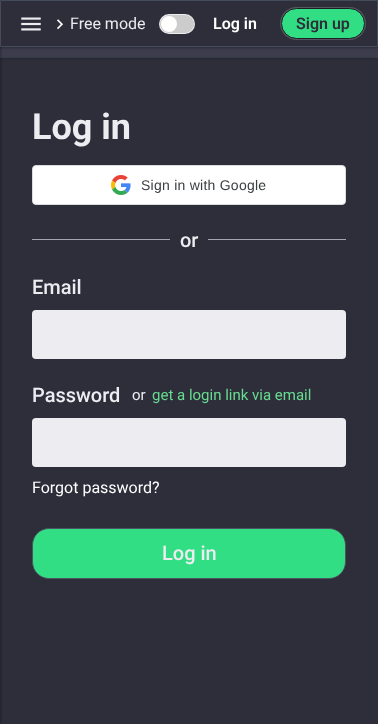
<!DOCTYPE html>
<meta charset="utf-8">
<style>body { margin: 0 } canvas { display: block }</style>
<canvas id="canvas" width="378" height="724"></canvas>
<img id="img1" src="images/1.png" hidden>
<img id="img2" src="images/2.png" hidden>
<img id="img3" src="images/3.png" hidden>
<script>
window.onload = function () {
    const canvas = document.getElementById('canvas');
    const context = canvas.getContext('2d');
    context.miterLimit = 4;
    context.fontKerning = 'normal';

    context.fillStyle = 'rgb(45, 46, 58)';
    context.fillRect(0, 0, 378, 724);
    context.fillStyle = 'rgb(68, 76, 91)';
    context.fillRect(0, 57, 378, 1);
    context.fillStyle = 'rgba(0, 0, 0, 0.33)';
    context.filter = 'blur(1.5px)';
    context.beginPath();
    context.rect(0, 1, 378, 57);
    context.fill();
    context.filter = 'none';
    context.fillStyle = 'rgb(60, 60, 76)';
    context.fillRect(0, 47, 378, 10);
    context.fillStyle = 'rgba(0, 0, 0, 0.27)';
    context.filter = 'blur(1px)';
    context.beginPath();
    context.rect(-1, -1, 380, 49);
    context.fill();
    context.filter = 'none';
    context.filter = 'blur(1px)';
    context.beginPath();
    context.rect(-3, 37, 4, 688);
    context.fill();
    context.filter = 'none';
    context.fillStyle = 'rgb(45, 46, 58)';
    context.beginPath();
    context.rect(0.5, 0.5, 377, 46);
    context.fill();
    context.strokeStyle = 'rgb(68, 76, 91)';
    context.stroke();
    context.drawImage(document.getElementById('img1'), 21, 17, 20, 14);
    context.drawImage(document.getElementById('img2'), 57, 19, 6, 11);
    context.fillStyle = 'rgb(236, 236, 241)';
    context.filter = 'blur(0.5px)';
    context.beginPath();
    context.roundRect(159, 14, 36, 20, 10);
    context.fill();
    context.filter = 'none';
    context.fillStyle = 'rgb(204, 204, 204)';
    context.beginPath();
    context.roundRect(160, 15, 34, 18, 9);
    context.fill();
    context.fillStyle = 'rgb(255, 255, 255)';
    context.beginPath();
    context.arc(169, 24, 8, 0, 2 * Math.PI);
    context.fill();
    context.fillStyle = 'rgba(255, 255, 255, 0.19)';
    context.filter = 'blur(0.5px)';
    context.beginPath();
    context.roundRect(280, 7, 86, 33, 16.5);
    context.fill();
    context.filter = 'none';
    context.fillStyle = 'rgb(50, 222, 132)';
    context.beginPath();
    context.roundRect(281.5, 8.5, 83, 30, 15);
    context.fill();
    context.strokeStyle = 'rgb(30, 30, 38)';
    context.stroke();
    context.fillStyle = 'rgb(255, 255, 255)';
    context.beginPath();
    context.roundRect(32.5, 165.5, 313, 39, 3.5);
    context.fill();
    context.strokeStyle = 'rgb(218, 220, 224)';
    context.stroke();
    context.drawImage(document.getElementById('img3'), 111, 175, 20, 20);
    context.fillStyle = 'rgb(164, 165, 176)';
    context.fillRect(32, 239, 138, 1);
    context.fillRect(208, 239, 138, 1);
    context.fillStyle = 'rgb(236, 236, 241)';
    context.beginPath();
    context.roundRect(32, 310, 314, 49, 4);
    context.fill();
    context.beginPath();
    context.roundRect(32, 418, 314, 49, 4);
    context.fill();
    context.fillStyle = 'rgba(0, 0, 0, 0.33)';
    context.filter = 'blur(0.5px)';
    context.beginPath();
    context.roundRect(32, 528, 314, 51, 17);
    context.fill();
    context.filter = 'none';
    context.fillStyle = 'rgb(50, 222, 132)';
    context.beginPath();
    context.roundRect(32.5, 528.5, 313, 50, 16.5);
    context.fill();
    context.strokeStyle = 'rgb(76, 84, 98)';
    context.stroke();
    context.font = '16px Roboto';
    context.fillStyle = 'rgb(236, 236, 241)';
    context.fillText('Free mode', 70, 29);
    context.font = '600 16px Roboto';
    context.fillStyle = 'rgb(255, 255, 255)';
    context.fillText('Log in', 213, 29);
    context.fillStyle = 'rgb(45, 46, 57)';
    context.fillText('Sign up', 296, 29);
    context.font = 'bold 36px Roboto';
    context.fillStyle = 'rgb(236, 236, 241)';
    context.fillText('Log in', 32, 139);
    context.letterSpacing = '0.25px';
    context.font = '14px Liberation Sans';
    context.fillStyle = 'rgb(60, 64, 67)';
    context.fillText('Sign in with Google', 141, 190);
    context.letterSpacing = '0px';
    context.font = '500 20px Roboto';
    context.fillStyle = 'rgb(236, 236, 241)';
    context.fillText('or', 180, 247);
    context.fillText('Email', 32, 294);
    context.fillText('Password', 32, 402);
    context.font = '15px Roboto';
    context.fillText('or', 132, 400);
    context.fillStyle = 'rgb(103, 220, 145)';
    context.fillText('get a login link via email', 152, 400);
    context.font = '16px Roboto';
    context.fillStyle = 'rgb(255, 255, 255)';
    context.fillText('Forgot password?', 32, 493);
    context.font = '500 20px Roboto';
    context.fillStyle = 'rgb(236, 236, 241)';
    context.fillText('Log in', 162, 560);
};
</script>
